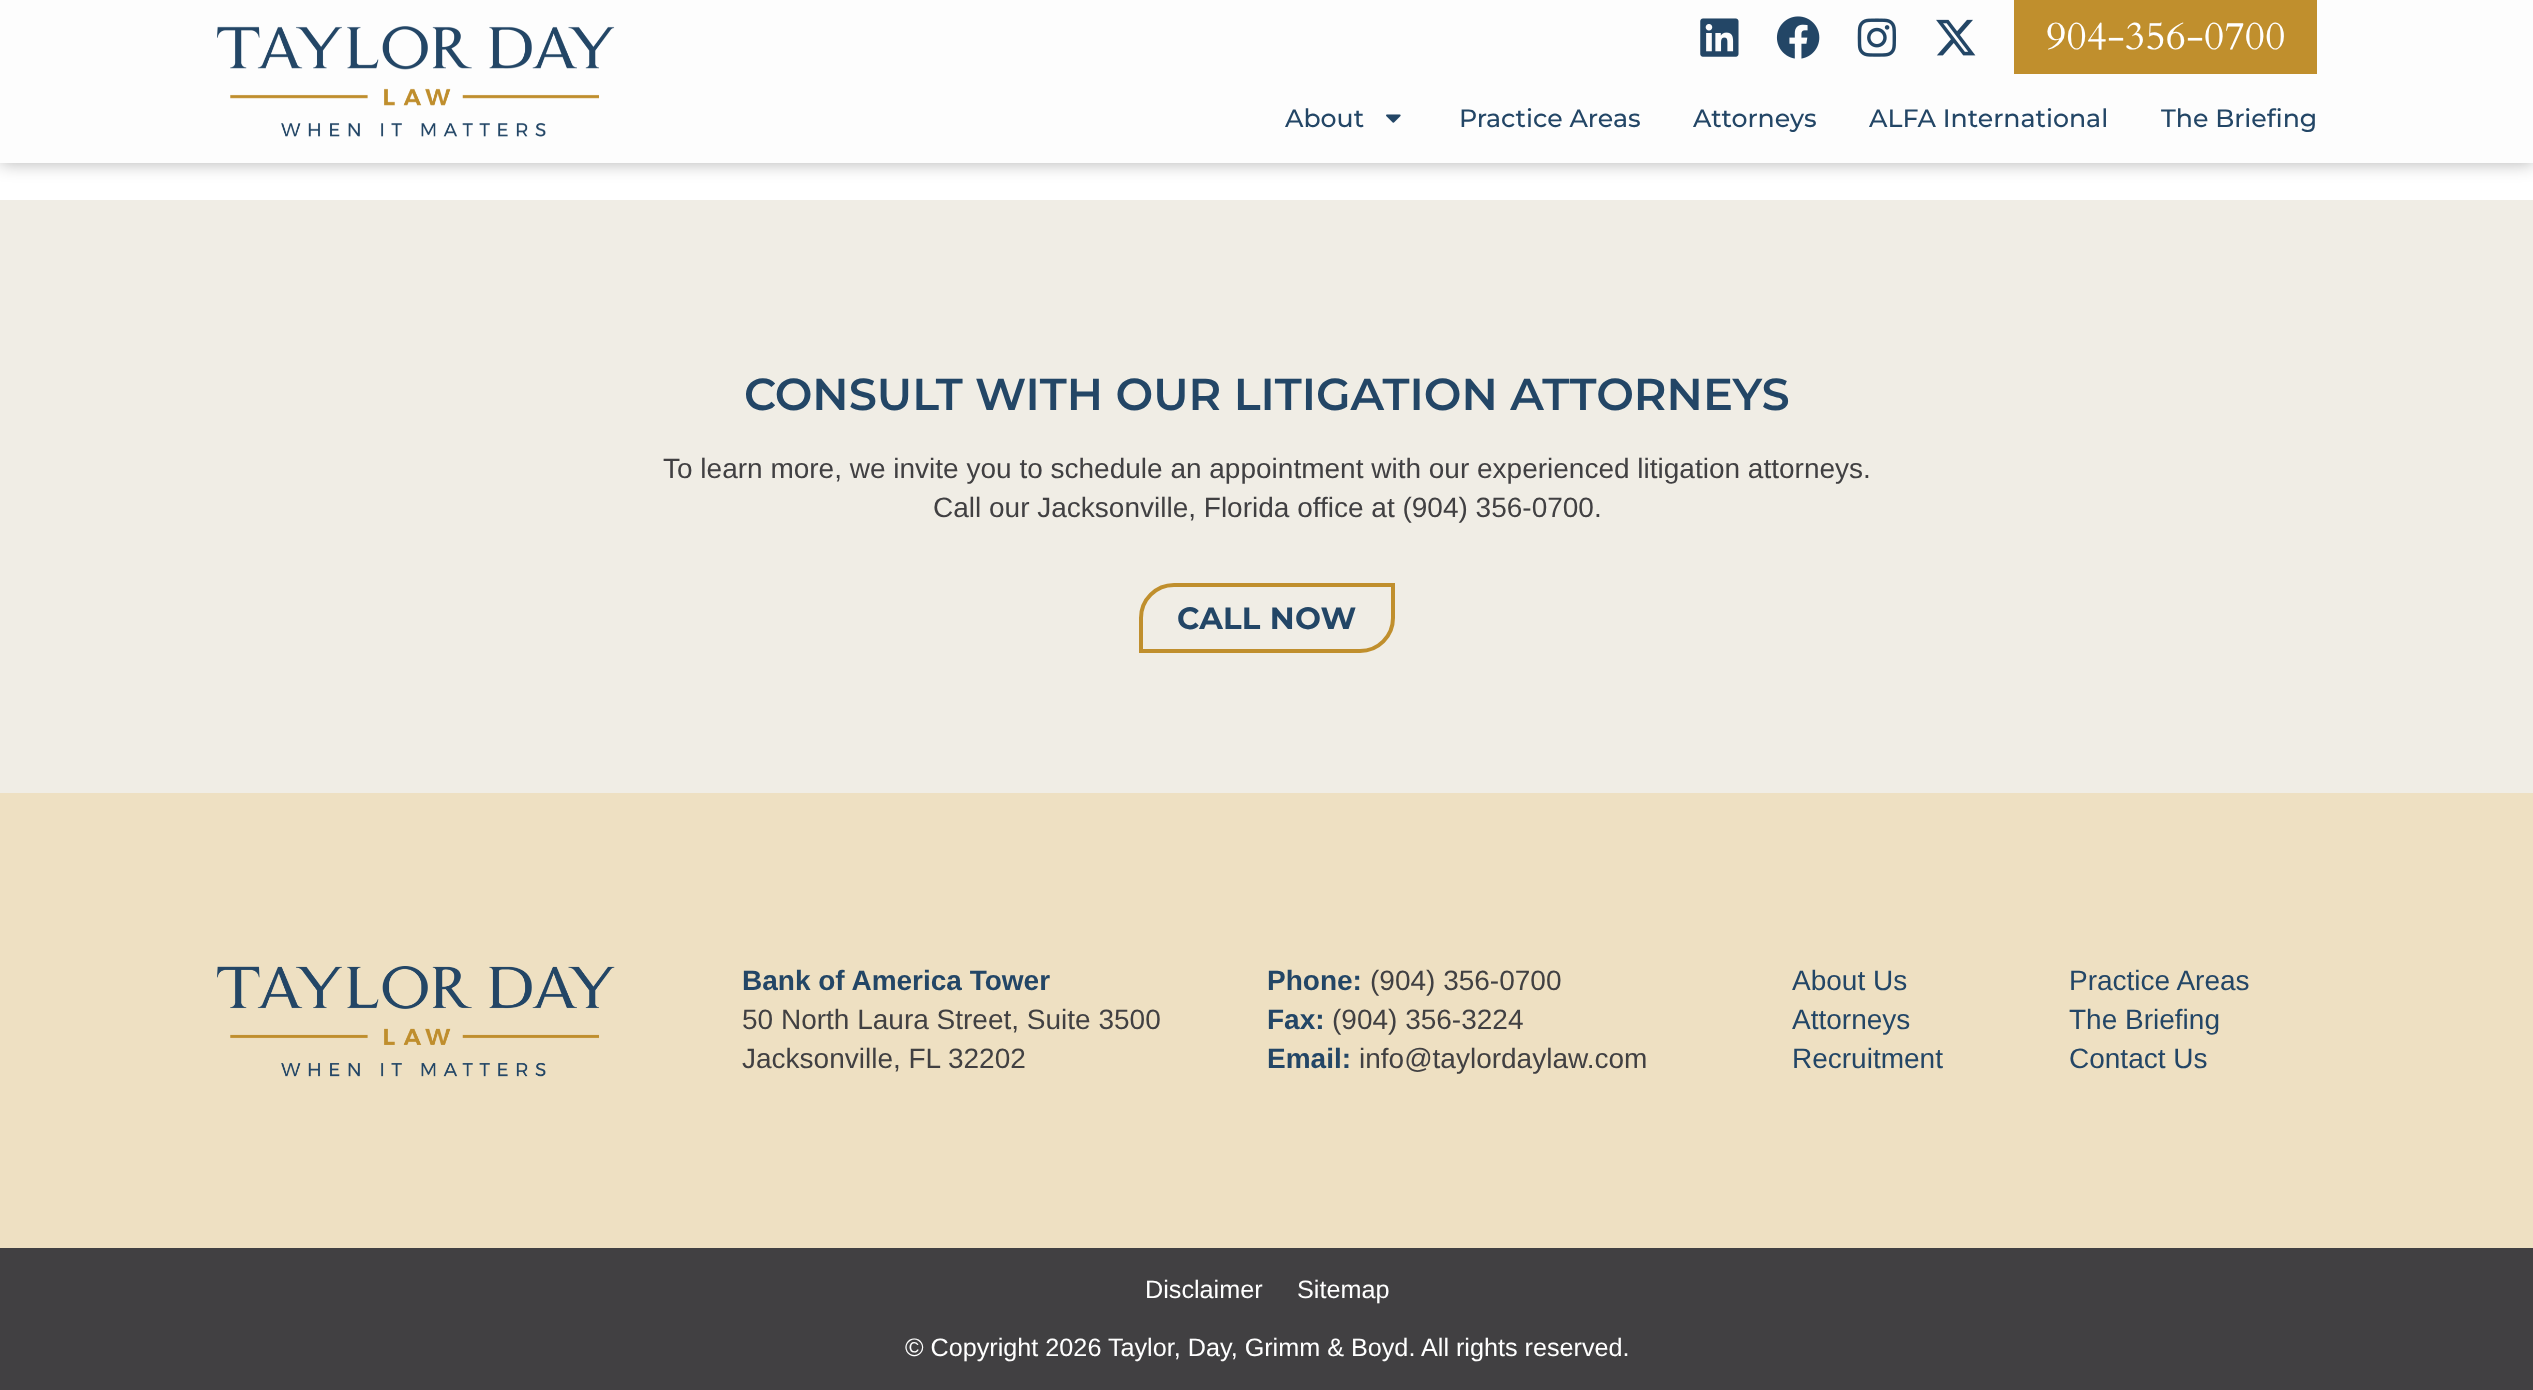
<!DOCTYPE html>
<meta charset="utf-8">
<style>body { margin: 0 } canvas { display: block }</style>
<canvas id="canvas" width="2533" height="1390"></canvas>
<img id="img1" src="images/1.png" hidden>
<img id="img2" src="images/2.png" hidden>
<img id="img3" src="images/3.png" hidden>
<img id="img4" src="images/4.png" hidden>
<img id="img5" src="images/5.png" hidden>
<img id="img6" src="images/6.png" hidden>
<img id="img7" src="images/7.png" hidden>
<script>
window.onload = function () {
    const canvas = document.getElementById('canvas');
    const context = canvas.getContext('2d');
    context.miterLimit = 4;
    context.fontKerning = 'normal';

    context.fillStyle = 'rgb(255, 255, 255)';
    context.fillRect(0, 0, 2533, 1390);
    context.fillStyle = 'rgba(0, 0, 0, 0.3)';
    context.filter = 'blur(9px)';
    context.beginPath();
    context.rect(0, 0, 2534, 163);
    context.fill();
    context.filter = 'none';
    context.fillStyle = 'rgb(253, 253, 253)';
    context.fillRect(0, 0, 2533, 163);
    context.drawImage(document.getElementById('img1'), 217, 26, 398, 111);
    context.drawImage(document.getElementById('img2'), 1700, 18, 39, 39);
    context.drawImage(document.getElementById('img3'), 1776, 16, 44, 43);
    context.drawImage(document.getElementById('img4'), 1857, 18, 40, 39);
    context.drawImage(document.getElementById('img5'), 1936, 19, 40, 37);
    context.fillStyle = 'rgb(192, 143, 45)';
    context.fillRect(2014, 0, 303, 74);
    context.drawImage(document.getElementById('img6'), 1386, 114, 15, 9);
    context.fillStyle = 'rgb(240, 237, 229)';
    context.fillRect(0, 200, 2533, 593);
    context.beginPath();
    context.roundRect(1141, 585, 252, 66, [33, 0, 33, 0]);
    context.strokeStyle = 'rgb(192, 143, 45)';
    context.lineWidth = 4;
    context.stroke();
    context.fillStyle = 'rgb(238, 224, 194)';
    context.fillRect(0, 793, 2533, 455);
    context.drawImage(document.getElementById('img7'), 217, 966, 398, 111);
    context.fillStyle = 'rgb(65, 64, 66)';
    context.fillRect(0, 1248, 2533, 142);
    context.letterSpacing = '0.3px';
    context.font = '39.25px Cardo';
    context.fillStyle = 'rgb(255, 255, 255)';
    context.fillText('904-356-0700', 2046, 49);
    context.letterSpacing = '0px';
    context.font = '500 25.2px Montserrat';
    context.fillStyle = 'rgb(35, 70, 102)';
    context.fillText('About', 1285, 127);
    context.fillText('Practice Areas', 1459, 127);
    context.fillText('Attorneys', 1693, 127);
    context.fillText('ALFA International', 1869, 127);
    context.fillText('The Briefing', 2161, 127);
    context.font = '600 44.8px Montserrat';
    context.fillText('CONSULT WITH OUR LITIGATION ATTORNEYS', 744, 410);
    context.font = '28px Liberation Sans';
    context.fillStyle = 'rgb(65, 64, 66)';
    context.fillText('To learn more, we invite you to schedule an appointment with our experienced litigation attorneys.', 663, 478);
    context.fillText('Call our Jacksonville, Florida office at (904) 356-0700.', 933, 517);
    context.letterSpacing = '0.3px';
    context.font = 'bold 30.75px Montserrat';
    context.fillStyle = 'rgb(35, 70, 102)';
    context.fillText('CALL NOW', 1177, 629);
    context.letterSpacing = '0px';
    context.font = 'bold 28px Liberation Sans';
    context.fillText('Bank of America Tower', 742, 990);
    context.font = '28px Liberation Sans';
    context.fillStyle = 'rgb(65, 64, 66)';
    context.fillText('50 North Laura Street, Suite 3500', 742, 1029);
    context.fillText('Jacksonville, FL 32202', 742, 1068);
    context.font = 'bold 28px Liberation Sans';
    context.fillStyle = 'rgb(35, 70, 102)';
    context.fillText('Phone:', 1267, 990);
    context.font = '28px Liberation Sans';
    context.fillStyle = 'rgb(65, 64, 66)';
    context.fillText('(904) 356-0700', 1370, 990);
    context.font = 'bold 28px Liberation Sans';
    context.fillStyle = 'rgb(35, 70, 102)';
    context.fillText('Fax:', 1267, 1029);
    context.font = '28px Liberation Sans';
    context.fillStyle = 'rgb(65, 64, 66)';
    context.fillText('(904) 356-3224', 1332, 1029);
    context.font = 'bold 28px Liberation Sans';
    context.fillStyle = 'rgb(35, 70, 102)';
    context.fillText('Email:', 1267, 1068);
    context.font = '28px Liberation Sans';
    context.fillStyle = 'rgb(65, 64, 66)';
    context.fillText('info@taylordaylaw.com', 1359, 1068);
    context.fillStyle = 'rgb(35, 70, 102)';
    context.fillText('About Us', 1792, 990);
    context.fillText('Attorneys', 1792, 1029);
    context.fillText('Recruitment', 1792, 1068);
    context.fillText('Practice Areas', 2069, 990);
    context.fillText('The Briefing', 2069, 1029);
    context.fillText('Contact Us', 2069, 1068);
    context.font = '25.2px Liberation Sans';
    context.fillStyle = 'rgb(255, 255, 255)';
    context.fillText('Disclaimer', 1145, 1298);
    context.fillText('Sitemap', 1297, 1298);
    context.fillText('© Copyright 2026 Taylor, Day, Grimm & Boyd. All rights reserved.', 905, 1356);
};
</script>
